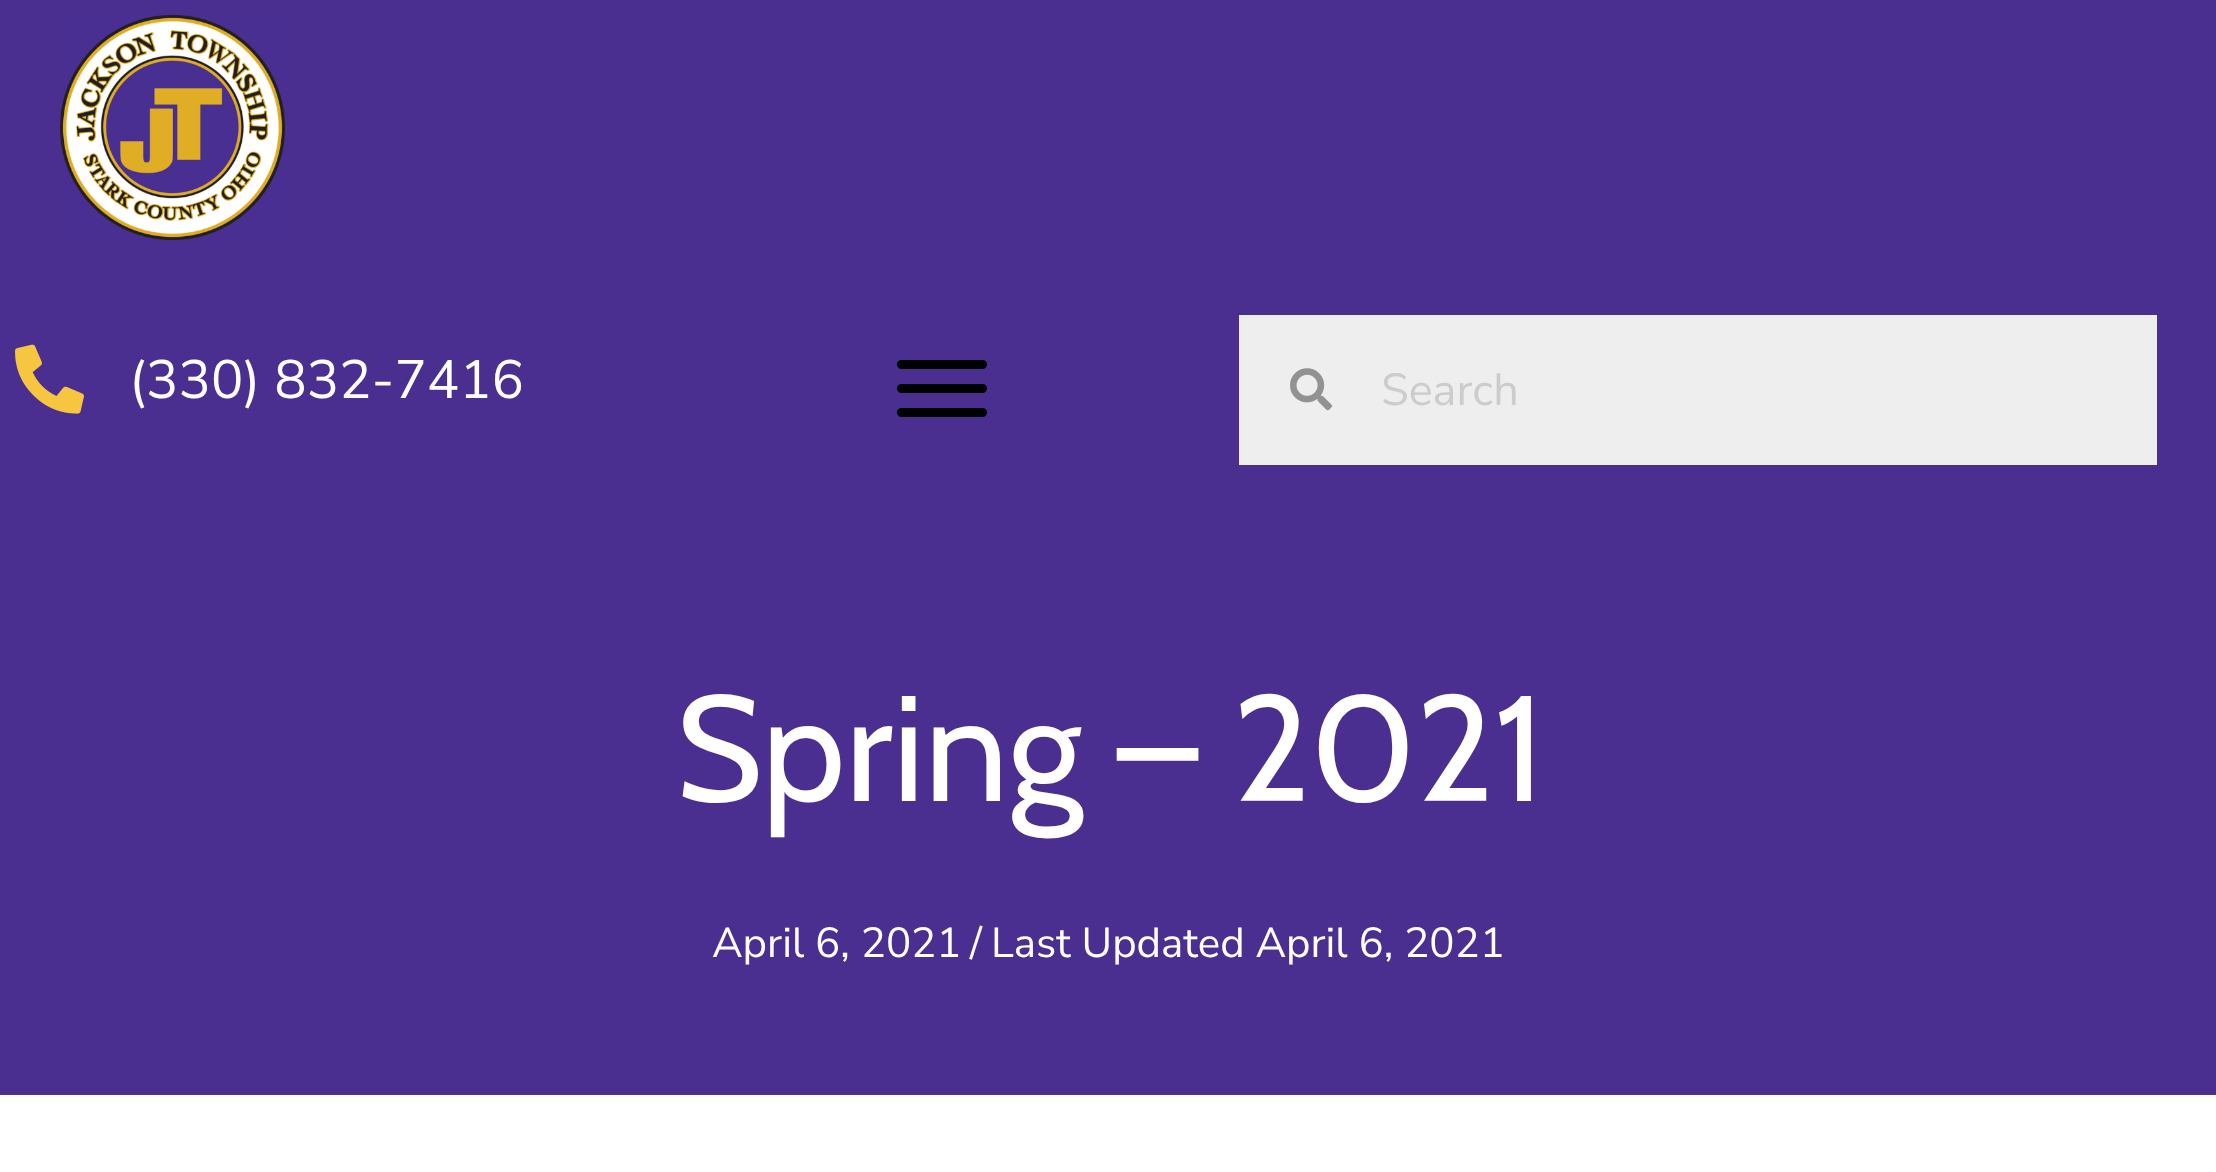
<!DOCTYPE html>
<meta charset="utf-8">
<style>body { margin: 0 } canvas { display: block }</style>
<canvas id="canvas" width="2216" height="1172"></canvas>
<img id="img1" src="images/1.png" hidden>
<img id="img2" src="images/2.png" hidden>
<img id="img3" src="images/3.png" hidden>
<script>
window.onload = function () {
    const canvas = document.getElementById('canvas');
    const context = canvas.getContext('2d');
    context.miterLimit = 4;
    context.fontKerning = 'normal';

    context.fillStyle = 'rgb(255, 255, 255)';
    context.fillRect(0, 0, 2216, 1172);
    context.fillStyle = 'rgb(74, 47, 145)';
    context.fillRect(0, 0, 2216, 1095);
    context.drawImage(document.getElementById('img1'), 60, 15, 225, 225);
    context.drawImage(document.getElementById('img2'), 15, 344, 69, 70);
    context.fillStyle = 'rgb(0, 0, 0)';
    context.beginPath();
    context.roundRect(897, 384, 90, 9, 4.5);
    context.fill();
    context.beginPath();
    context.roundRect(897, 360, 90, 9, 4.5);
    context.fill();
    context.beginPath();
    context.roundRect(897, 408, 90, 9, 4.5);
    context.fill();
    context.fillStyle = 'rgb(238, 238, 238)';
    context.fillRect(1239, 315, 918, 150);
    context.drawImage(document.getElementById('img3'), 1290, 368, 42, 43);
    context.font = '54px Nunito Sans';
    context.fillStyle = 'rgb(255, 255, 255)';
    context.fillText('(330) 832-7416', 129, 398);
    context.font = '45px Nunito Sans';
    context.fillStyle = 'rgb(204, 204, 204)';
    context.fillText('Search', 1381, 405);
    context.font = '150px Cabin';
    context.fillStyle = 'rgb(255, 255, 255)';
    context.fillText('Spring – 2021', 675, 801);
    context.font = '42px Nunito Sans';
    context.fillText('April 6, 2021', 712, 957);
    context.fillText('/', 970, 957);
    context.fillText('Last Updated April 6, 2021', 991, 957);
};
</script>
